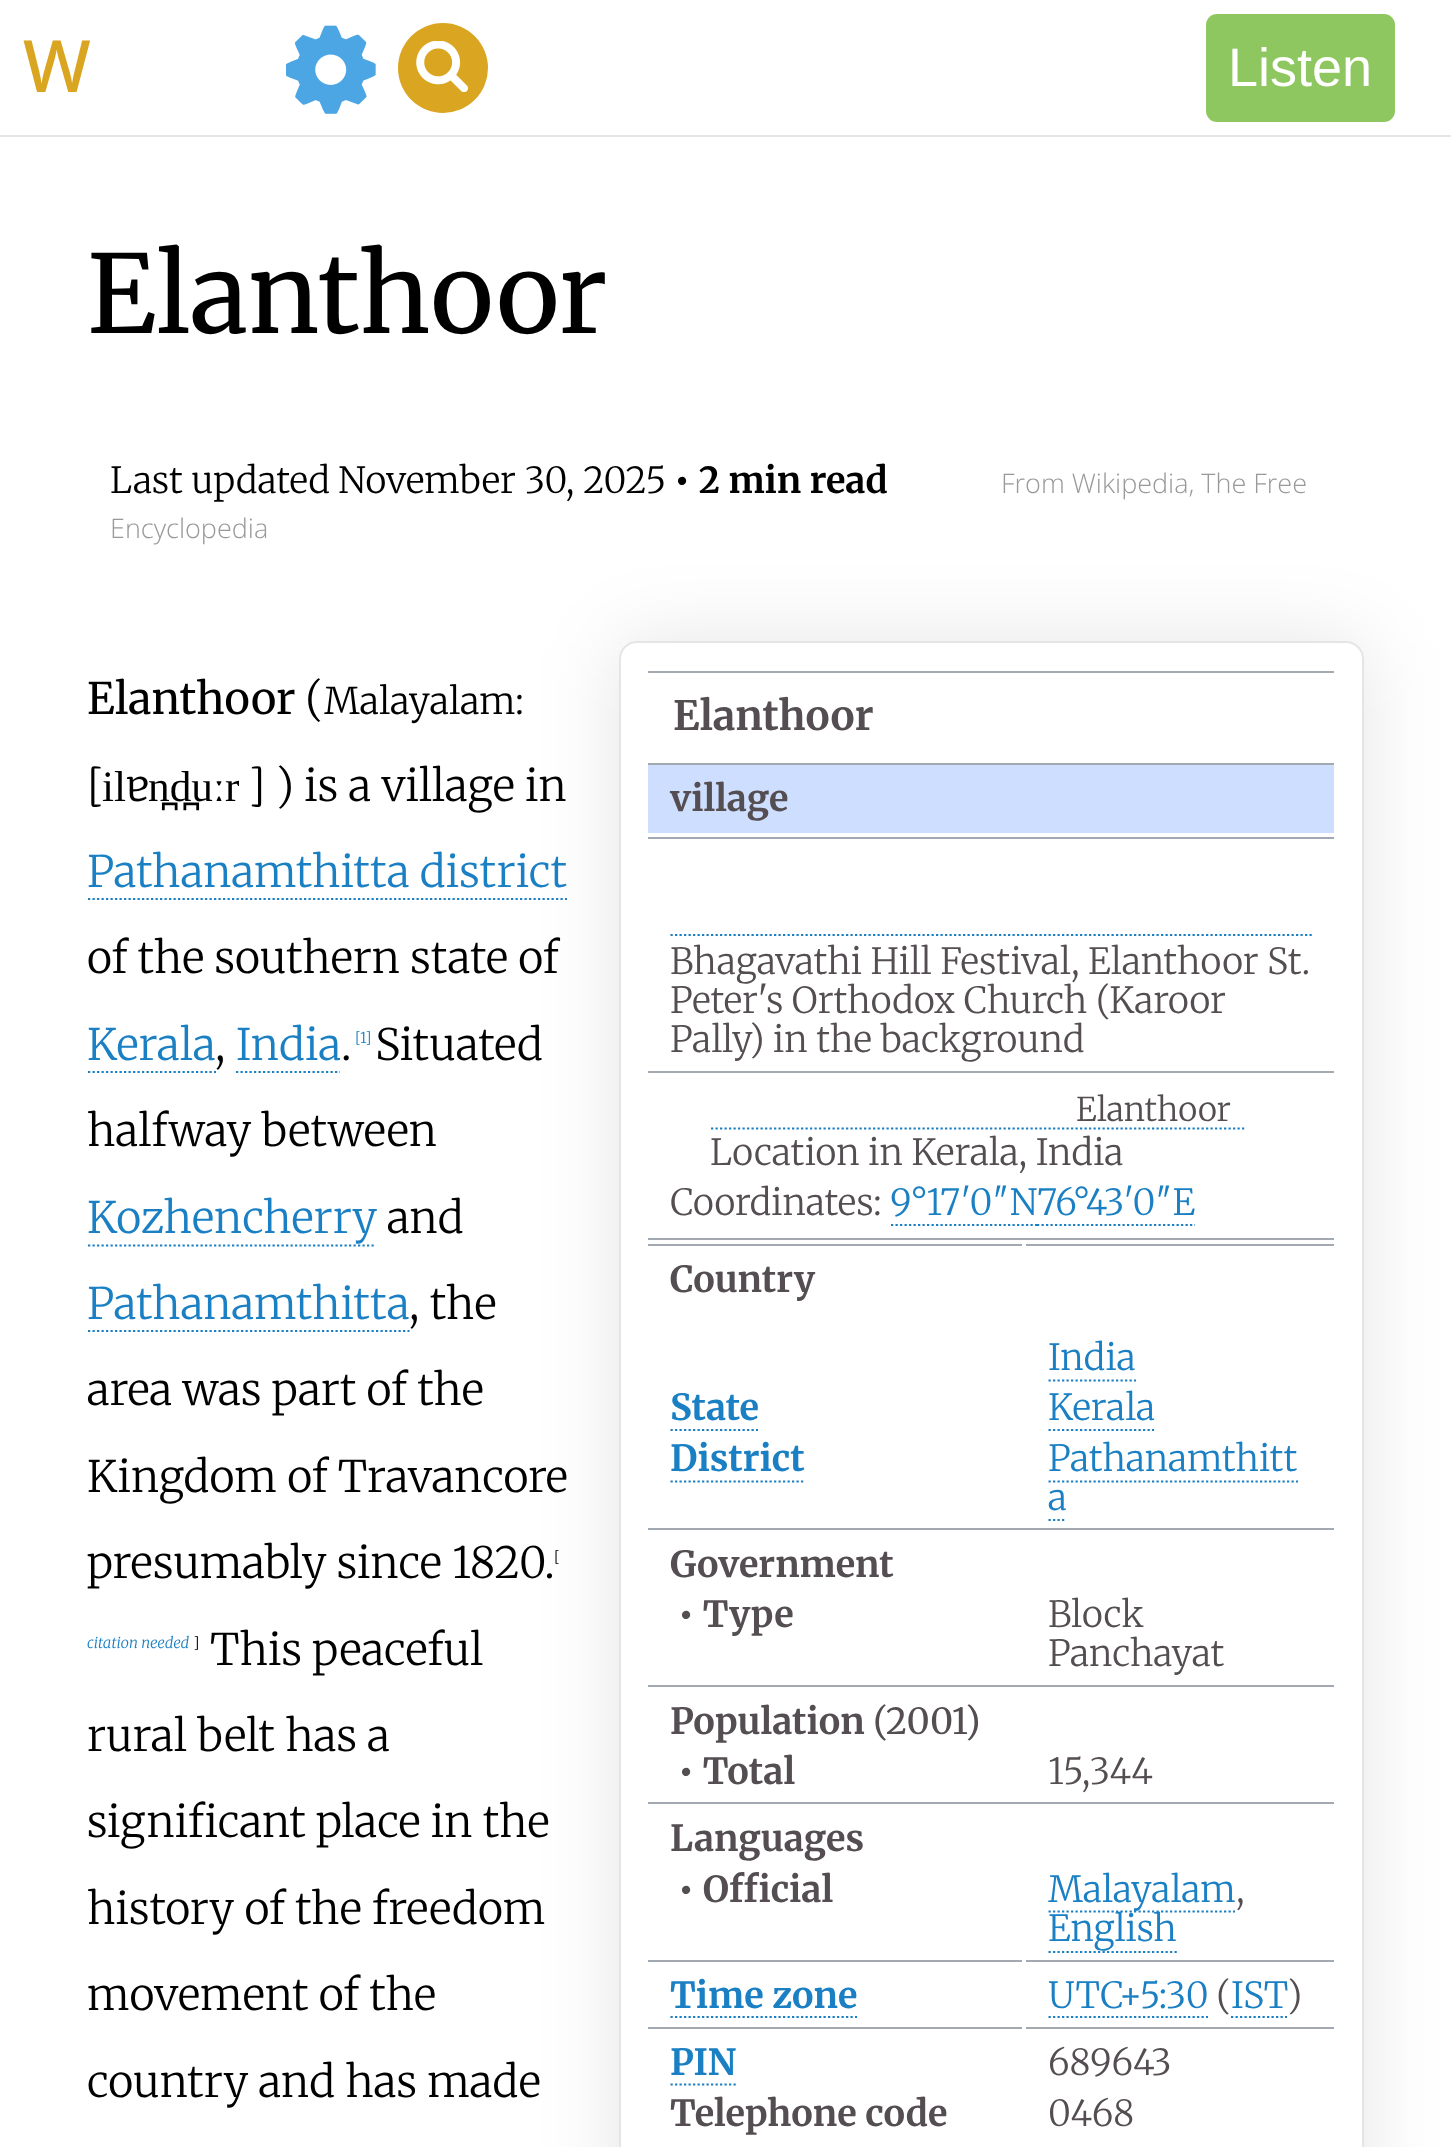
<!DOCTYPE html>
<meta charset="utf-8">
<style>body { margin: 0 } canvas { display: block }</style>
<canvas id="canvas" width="1451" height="2147"></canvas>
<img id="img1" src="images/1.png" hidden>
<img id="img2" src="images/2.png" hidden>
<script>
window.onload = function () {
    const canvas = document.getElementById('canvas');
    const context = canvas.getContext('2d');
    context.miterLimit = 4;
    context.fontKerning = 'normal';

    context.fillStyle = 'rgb(255, 255, 255)';
    context.fillRect(0, 0, 1451, 2147);
    context.fillStyle = 'rgb(230, 230, 230)';
    context.fillRect(0, 135, 1451, 2);
    context.drawImage(document.getElementById('img1'), 286, 25, 90, 89);
    context.fillStyle = 'rgb(218, 165, 32)';
    context.beginPath();
    context.arc(443, 68, 45, 0, 2 * Math.PI);
    context.fill();
    context.drawImage(document.getElementById('img2'), 416, 41, 52, 51);
    context.fillStyle = 'rgb(142, 199, 96)';
    context.beginPath();
    context.roundRect(1206, 14, 189, 108, 11);
    context.fill();
    context.save();
    context.beginPath();
    context.moveTo(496, 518);
    context.lineTo(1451, 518);
    context.lineTo(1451, 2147);
    context.lineTo(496, 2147);
    context.closePath();
    context.moveTo(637, 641);
    context.lineTo(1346, 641);
    context.bezierCurveTo(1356, 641, 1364, 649, 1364, 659);
    context.lineTo(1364, 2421);
    context.bezierCurveTo(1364, 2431, 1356, 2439, 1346, 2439);
    context.lineTo(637, 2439);
    context.bezierCurveTo(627, 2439, 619, 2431, 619, 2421);
    context.lineTo(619, 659);
    context.bezierCurveTo(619, 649, 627, 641, 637, 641);
    context.closePath();
    context.clip('evenodd');
    context.fillStyle = 'rgba(0, 0, 0, 0.1)';
    context.filter = 'blur(40.5px)';
    context.beginPath();
    context.roundRect(619, 641, 745, 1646, 18);
    context.fill();
    context.filter = 'none';
    context.restore();
    context.beginPath();
    context.moveTo(88, 899);
    context.lineTo(567, 899);
    context.strokeStyle = 'rgb(26, 127, 195)';
    context.lineWidth = 2.2;
    context.setLineDash([2.25, 2.25]);
    context.stroke();
    context.beginPath();
    context.moveTo(88, 1072);
    context.lineTo(216, 1072);
    context.stroke();
    context.beginPath();
    context.moveTo(236, 1072);
    context.lineTo(340, 1072);
    context.stroke();
    context.beginPath();
    context.moveTo(88, 1245.5);
    context.lineTo(376, 1245.5);
    context.stroke();
    context.beginPath();
    context.moveTo(88, 1331);
    context.lineTo(409.5, 1331);
    context.stroke();
    context.beginPath();
    context.roundRect(620, 642, 743, 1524, 17);
    context.strokeStyle = 'rgba(0, 0, 0, 0.1)';
    context.lineWidth = 2;
    context.setLineDash([]);
    context.stroke();
    context.fillStyle = 'rgb(162, 169, 177)';
    context.fillRect(648, 671, 686, 2);
    context.fillStyle = 'rgb(205, 222, 255)';
    context.fillRect(648, 765, 686, 68);
    context.fillStyle = 'rgb(162, 169, 177)';
    context.fillRect(648, 763, 686, 2);
    context.fillRect(648, 837, 686, 2);
    context.beginPath();
    context.moveTo(670.5, 935);
    context.lineTo(1314, 935);
    context.strokeStyle = 'rgb(26, 127, 195)';
    context.lineWidth = 2.2;
    context.setLineDash([2.25, 2.25]);
    context.stroke();
    context.fillRect(648, 1071, 686, 2);
    context.beginPath();
    context.moveTo(711, 1128.5);
    context.lineTo(1246.5, 1128.5);
    context.stroke();
    context.fillRect(648, 1238, 686, 2);
    context.beginPath();
    context.moveTo(891, 1225);
    context.lineTo(1037, 1225);
    context.stroke();
    context.beginPath();
    context.moveTo(1037, 1225);
    context.lineTo(1195, 1225);
    context.stroke();
    context.fillRect(648, 1244, 374, 2);
    context.fillRect(1026, 1244, 308, 2);
    context.beginPath();
    context.moveTo(1048.5, 1380.5);
    context.lineTo(1136, 1380.5);
    context.stroke();
    context.beginPath();
    context.moveTo(670.5, 1430);
    context.lineTo(758, 1430);
    context.stroke();
    context.beginPath();
    context.moveTo(1048.5, 1430);
    context.lineTo(1154, 1430);
    context.stroke();
    context.beginPath();
    context.moveTo(670.5, 1481.5);
    context.lineTo(805.5, 1481.5);
    context.stroke();
    context.beginPath();
    context.moveTo(1048.5, 1481.5);
    context.lineTo(1298, 1481.5);
    context.stroke();
    context.beginPath();
    context.moveTo(1048.5, 1520);
    context.lineTo(1066.5, 1520);
    context.stroke();
    context.fillRect(648, 1528, 686, 2);
    context.fillRect(648, 1685, 686, 2);
    context.fillRect(648, 1802, 686, 2);
    context.beginPath();
    context.moveTo(1048.5, 1911.5);
    context.lineTo(1235, 1911.5);
    context.stroke();
    context.beginPath();
    context.moveTo(1048.5, 1952);
    context.lineTo(1177, 1952);
    context.stroke();
    context.fillRect(648, 1960, 374, 2);
    context.beginPath();
    context.moveTo(670.5, 2017);
    context.lineTo(857, 2017);
    context.stroke();
    context.fillRect(1026, 1960, 308, 2);
    context.beginPath();
    context.moveTo(1048.5, 2017);
    context.lineTo(1208, 2017);
    context.stroke();
    context.beginPath();
    context.moveTo(1231, 2017);
    context.lineTo(1287, 2017);
    context.stroke();
    context.fillRect(648, 2027, 374, 2);
    context.beginPath();
    context.moveTo(670.5, 2084.5);
    context.lineTo(736, 2084.5);
    context.stroke();
    context.fillRect(1026, 2027, 308, 2);
    context.font = '500 72px Noto Sans';
    context.fillStyle = 'rgb(218, 165, 32)';
    context.fillText('W', 23, 92);
    context.font = '54px Liberation Sans';
    context.fillStyle = 'rgb(255, 255, 255)';
    context.fillText('Listen', 1228, 86);
    context.font = '108px Merriweather';
    context.fillStyle = 'rgb(0, 0, 0)';
    context.fillText('Elanthoor', 87, 333);
    context.font = '300 36px Merriweather';
    context.fillText('Last updated November 30, 2025', 110, 493);
    context.font = 'bold 36px Merriweather';
    context.fillText('• 2 min read', 674, 493);
    context.font = '300 27px Open Sans';
    context.fillStyle = 'rgb(153, 153, 153)';
    context.fillText('From Wikipedia, The Free', 1001, 493);
    context.fillText('Encyclopedia', 110, 538);
    context.font = '43.25px Merriweather';
    context.fillStyle = 'rgb(0, 0, 0)';
    context.fillText('Elanthoor', 87, 714);
    context.font = '300 43.25px Merriweather';
    context.fillText('(', 305, 714);
    context.font = '300 36.75px Merriweather';
    context.fillText('Malayalam:', 324, 714);
    context.font = '300 43.25px Merriweather';
    context.fillText('[', 87, 801);
    context.font = '43.25px Liberation Serif';
    context.fillText('il', 102, 801);
    context.font = '300 43.25px Merriweather';
    context.fillText('ɐ', 126, 801);
    context.font = '43.25px Liberation Serif';
    context.fillText('n̪d̪uːr', 148, 801);
    context.font = '300 43.25px Merriweather';
    context.fillText('] ) is a village in', 247, 801);
    context.fillStyle = 'rgb(26, 127, 195)';
    context.fillText('Pathanamthitta district', 87, 887);
    context.fillStyle = 'rgb(0, 0, 0)';
    context.fillText('of the southern state of', 87, 973);
    context.fillStyle = 'rgb(26, 127, 195)';
    context.fillText('Kerala', 87, 1060);
    context.fillText('India', 236, 1060);
    context.font = '300 15px Merriweather';
    context.fillText('[', 355, 1043);
    context.fillText('1', 360, 1043);
    context.fillText(']', 365, 1043);
    context.font = '300 43.25px Merriweather';
    context.fillStyle = 'rgb(0, 0, 0)';
    context.fillText('Situated', 375, 1060);
    context.fillText(',', 215, 1060);
    context.fillText('.', 341, 1060);
    context.fillText('halfway between', 87, 1146);
    context.fillStyle = 'rgb(26, 127, 195)';
    context.fillText('Kozhencherry', 87, 1233);
    context.fillStyle = 'rgb(0, 0, 0)';
    context.fillText('and', 387, 1233);
    context.fillStyle = 'rgb(26, 127, 195)';
    context.fillText('Pathanamthitta', 87, 1319);
    context.fillStyle = 'rgb(0, 0, 0)';
    context.fillText(', the', 409, 1319);
    context.fillText('area was part of the', 87, 1405);
    context.fillText('Kingdom of Travancore', 87, 1492);
    context.fillText('presumably since 1820.', 87, 1578);
    context.font = '300 15px Merriweather';
    context.fillText('[', 554, 1562);
    context.font = 'italic 300 15px Merriweather';
    context.fillStyle = 'rgb(26, 127, 195)';
    context.fillText('citation needed', 87, 1648);
    context.font = '300 15px Merriweather';
    context.fillStyle = 'rgb(0, 0, 0)';
    context.fillText(']', 193, 1648);
    context.font = '300 43.25px Merriweather';
    context.fillText('This peaceful', 210, 1665);
    context.fillText('rural belt has a', 87, 1751);
    context.fillText('significant place in the', 87, 1837);
    context.fillText('history of the freedom', 87, 1924);
    context.fillText('movement of the', 87, 2010);
    context.fillText('country and has made', 87, 2097);
    context.font = 'bold 40.5px Merriweather';
    context.fillStyle = 'rgb(84, 78, 82)';
    context.fillText('Elanthoor', 673, 730);
    context.font = 'bold 36px Merriweather';
    context.fillText('village', 670, 811);
    context.font = '300 36px Merriweather';
    context.fillText('Bhagavathi Hill Festival, Elanthoor St.', 670, 974);
    context.fillText('Peter\'s Orthodox Church (Karoor', 670, 1013);
    context.fillText('Pally) in the background', 670, 1052);
    context.font = '300 32.75px Merriweather';
    context.fillText('Elanthoor', 1076, 1121);
    context.font = '300 36px Merriweather';
    context.fillText('Location in Kerala, India', 710, 1165);
    context.fillText('Coordinates:', 670, 1215);
    context.fillStyle = 'rgb(26, 127, 195)';
    context.fillText('9°17′0″N76°43′0″E', 890, 1215);
    context.font = 'bold 36px Merriweather';
    context.fillStyle = 'rgb(84, 78, 82)';
    context.fillText('Country', 670, 1292);
    context.font = '300 36px Merriweather';
    context.fillStyle = 'rgb(26, 127, 195)';
    context.fillText('India', 1048, 1370);
    context.font = 'bold 36px Merriweather';
    context.fillText('State', 670, 1420);
    context.font = '300 36px Merriweather';
    context.fillText('Kerala', 1048, 1420);
    context.font = 'bold 36px Merriweather';
    context.fillText('District', 670, 1471);
    context.font = '300 36px Merriweather';
    context.fillText('Pathanamthitt', 1048, 1471);
    context.fillText('a', 1048, 1510);
    context.font = 'bold 36px Merriweather';
    context.fillStyle = 'rgb(84, 78, 82)';
    context.fillText('Government', 670, 1577);
    context.fillText('• Type', 678, 1627);
    context.font = '300 36px Merriweather';
    context.fillText('Block', 1048, 1627);
    context.fillText('Panchayat', 1048, 1666);
    context.font = 'bold 36px Merriweather';
    context.fillText('Population', 670, 1734);
    context.font = '36px Merriweather';
    context.fillText('(2001)', 873, 1734);
    context.font = 'bold 36px Merriweather';
    context.fillText('• Total', 678, 1784);
    context.font = '300 36px Merriweather';
    context.fillText('15,344', 1048, 1784);
    context.font = 'bold 36px Merriweather';
    context.fillText('Languages', 670, 1851);
    context.fillText('• Official', 678, 1902);
    context.font = '300 36px Merriweather';
    context.fillStyle = 'rgb(26, 127, 195)';
    context.fillText('Malayalam', 1048, 1902);
    context.fillStyle = 'rgb(84, 78, 82)';
    context.fillText(',', 1236, 1902);
    context.fillStyle = 'rgb(26, 127, 195)';
    context.fillText('English', 1048, 1941);
    context.font = 'bold 36px Merriweather';
    context.fillText('Time zone', 670, 2008);
    context.font = '300 36px Merriweather';
    context.fillText('UTC+5:30', 1048, 2008);
    context.fillStyle = 'rgb(84, 78, 82)';
    context.fillText('(', 1216, 2008);
    context.fillStyle = 'rgb(26, 127, 195)';
    context.fillText('IST', 1231, 2008);
    context.fillStyle = 'rgb(84, 78, 82)';
    context.fillText(')', 1287, 2008);
    context.font = 'bold 36px Merriweather';
    context.fillStyle = 'rgb(26, 127, 195)';
    context.fillText('PIN', 670, 2075);
    context.font = '300 36px Merriweather';
    context.fillStyle = 'rgb(84, 78, 82)';
    context.fillText('689643', 1048, 2075);
    context.font = 'bold 36px Merriweather';
    context.fillText('Telephone code', 670, 2126);
    context.font = '300 36px Merriweather';
    context.fillText('0468', 1048, 2126);
};
</script>
